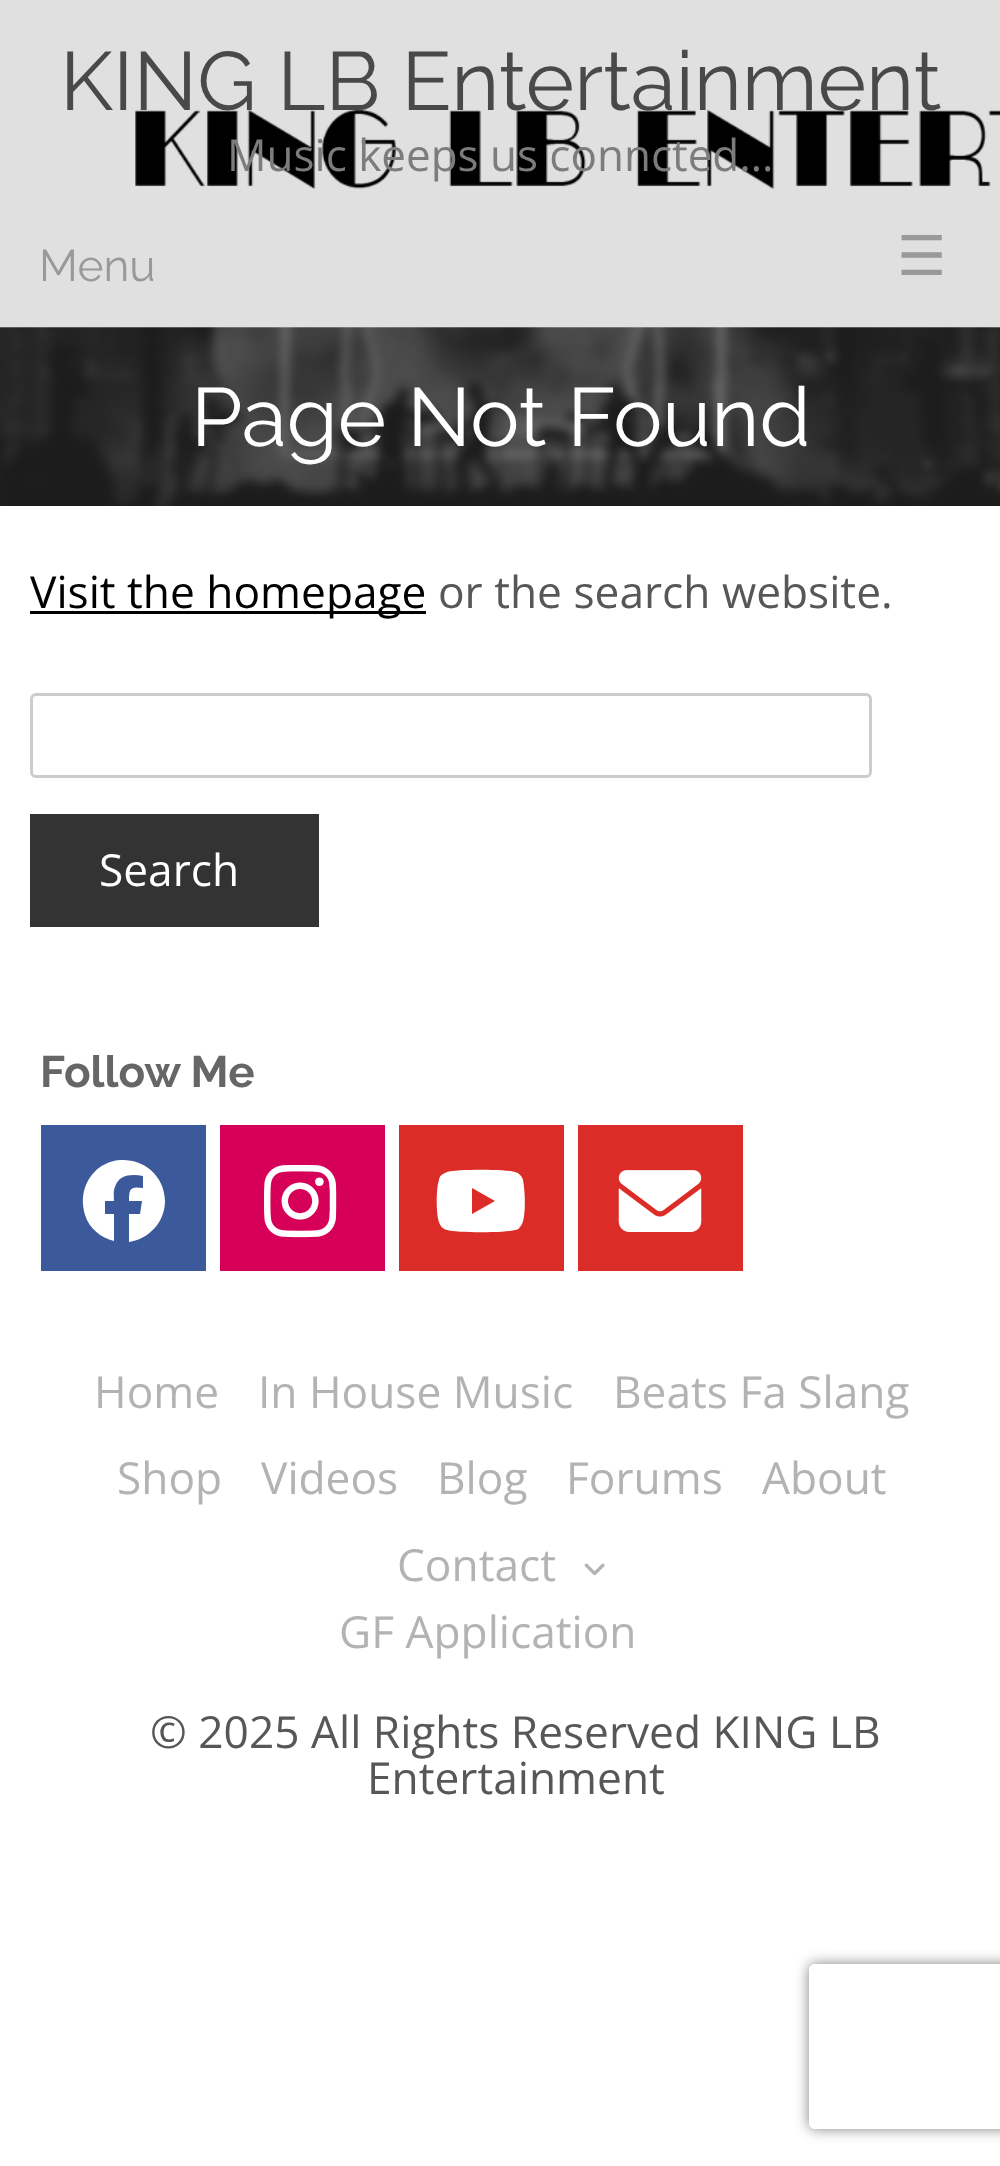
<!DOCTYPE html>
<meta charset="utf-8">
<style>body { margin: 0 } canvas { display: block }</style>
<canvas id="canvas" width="1000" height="2166"></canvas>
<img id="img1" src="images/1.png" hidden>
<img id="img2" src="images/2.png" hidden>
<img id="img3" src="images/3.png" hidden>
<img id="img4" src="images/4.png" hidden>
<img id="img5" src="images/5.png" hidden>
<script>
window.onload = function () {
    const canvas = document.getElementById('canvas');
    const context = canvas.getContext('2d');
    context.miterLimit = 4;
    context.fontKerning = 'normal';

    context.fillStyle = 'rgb(255, 255, 255)';
    context.fillRect(0, 0, 1000, 2166);
    context.fillStyle = 'rgb(224, 224, 224)';
    context.fillRect(0, 0, 1000, 327);
    context.drawImage(document.getElementById('img1'), 135, 109, 865, 80);
    context.drawImage(document.getElementById('img2'), 0, 327, 1000, 179);
    context.fillStyle = 'rgb(0, 0, 0)';
    context.fillRect(30, 611, 396, 3);
    context.beginPath();
    context.roundRect(31.5, 694.5, 839, 82, 4.5);
    context.strokeStyle = 'rgb(204, 204, 204)';
    context.lineWidth = 3;
    context.stroke();
    context.fillStyle = 'rgb(51, 51, 51)';
    context.fillRect(30, 814, 289, 113);
    context.fillStyle = 'rgb(60, 89, 155)';
    context.fillRect(41, 1125, 165, 146);
    context.fillStyle = 'rgb(255, 255, 255)';
    context.beginPath();
    context.moveTo(165, 1201);
    context.bezierCurveTo(164, 1156, 103, 1144, 86, 1185);
    context.bezierCurveTo(82, 1194, 82, 1205, 85, 1215);
    context.bezierCurveTo(89, 1228, 101, 1238, 114, 1241);
    context.lineTo(114, 1214);
    context.lineTo(105, 1214);
    context.lineTo(105, 1201);
    context.lineTo(114, 1201);
    context.bezierCurveTo(114, 1196, 113, 1191, 115, 1187);
    context.bezierCurveTo(119, 1174, 132, 1174, 143, 1176);
    context.lineTo(143, 1188);
    context.bezierCurveTo(130, 1186, 129, 1189, 129, 1201);
    context.lineTo(142, 1201);
    context.lineTo(140, 1214);
    context.lineTo(129, 1214);
    context.lineTo(129, 1242);
    context.bezierCurveTo(149, 1239, 165, 1222, 165, 1201);
    context.closePath();
    context.fill();
    context.fillStyle = 'rgb(214, 0, 89)';
    context.fillRect(220, 1125, 165, 146);
    context.drawImage(document.getElementById('img3'), 264, 1165, 73, 73);
    context.fillStyle = 'rgb(219, 44, 39)';
    context.fillRect(399, 1125, 165, 146);
    context.fillStyle = 'rgb(255, 255, 255)';
    context.beginPath();
    context.moveTo(523, 1180);
    context.bezierCurveTo(522, 1176, 519, 1173, 515, 1172);
    context.bezierCurveTo(507, 1169, 455, 1169, 447, 1172);
    context.lineTo(443, 1174);
    context.bezierCurveTo(441, 1175, 439, 1177, 439, 1180);
    context.bezierCurveTo(436, 1188, 436, 1214, 439, 1222);
    context.bezierCurveTo(440, 1226, 443, 1229, 447, 1230);
    context.bezierCurveTo(456, 1233, 506, 1233, 515, 1230);
    context.bezierCurveTo(517, 1230, 519, 1229, 520, 1227);
    context.bezierCurveTo(527, 1221, 525, 1189, 523, 1180);
    context.closePath();
    context.moveTo(472, 1214);
    context.lineTo(472, 1188);
    context.lineTo(472, 1214);
    context.lineTo(472, 1188);
    context.lineTo(495, 1201);
    context.closePath();
    context.fill();
    context.fillStyle = 'rgb(219, 44, 39)';
    context.fillRect(578, 1125, 165, 146);
    context.drawImage(document.getElementById('img4'), 618, 1170, 84, 62);
    context.drawImage(document.getElementById('img5'), 584, 1563, 21, 13);
    context.save();
    context.beginPath();
    context.moveTo(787, 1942);
    context.lineTo(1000, 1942);
    context.lineTo(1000, 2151);
    context.lineTo(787, 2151);
    context.closePath();
    context.moveTo(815, 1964);
    context.lineTo(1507, 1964);
    context.bezierCurveTo(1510.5, 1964, 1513, 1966.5, 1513, 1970);
    context.lineTo(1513, 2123);
    context.bezierCurveTo(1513, 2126.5, 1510.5, 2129, 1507, 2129);
    context.lineTo(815, 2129);
    context.bezierCurveTo(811.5, 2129, 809, 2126.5, 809, 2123);
    context.lineTo(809, 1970);
    context.bezierCurveTo(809, 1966.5, 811.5, 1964, 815, 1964);
    context.closePath();
    context.clip('evenodd');
    context.fillStyle = 'rgb(128, 128, 128)';
    context.filter = 'blur(7px)';
    context.beginPath();
    context.roundRect(809, 1964, 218, 165, 6);
    context.fill();
    context.filter = 'none';
    context.restore();
    context.font = '82.5px Raleway';
    context.fillStyle = 'rgb(73, 73, 73)';
    context.fillText('KING LB Entertainment', 60, 110);
    context.font = '44px Open Sans';
    context.fillStyle = 'rgb(124, 124, 124)';
    context.fillText('Music keeps us conncted…', 227, 171);
    context.font = '44.25px Raleway';
    context.fillStyle = 'rgb(153, 153, 153)';
    context.fillText('Menu', 39, 281);
    context.font = '55px DejaVu Sans';
    context.fillText('☰', 897, 275);
    context.font = '82.5px Raleway';
    context.fillStyle = 'rgb(255, 255, 255)';
    context.fillText('Page Not Found', 191, 446);
    context.font = '44.25px Open Sans';
    context.fillStyle = 'rgb(0, 0, 0)';
    context.fillText('Visit the homepage', 30, 608);
    context.fillStyle = 'rgb(87, 87, 87)';
    context.fillText('or the search website.', 438, 608);
    context.fillStyle = 'rgb(255, 255, 255)';
    context.fillText('Search', 99, 886);
    context.font = 'bold 44px Raleway';
    context.fillStyle = 'rgb(102, 102, 102)';
    context.fillText('Follow Me', 40, 1087);
    context.font = '44.25px Open Sans';
    context.fillStyle = 'rgb(179, 179, 179)';
    context.fillText('Home', 94, 1408);
    context.fillText('In House Music', 258, 1408);
    context.fillText('Beats Fa Slang', 613, 1408);
    context.fillText('Shop', 117, 1494);
    context.fillText('Videos', 261, 1494);
    context.fillText('Blog', 437, 1494);
    context.fillText('Forums', 566, 1494);
    context.fillText('About', 762, 1494);
    context.fillText('Contact', 397, 1581);
    context.fillText('GF Application', 339, 1648);
    context.fillStyle = 'rgb(87, 87, 87)';
    context.fillText('© 2025 All Rights Reserved KING LB', 150, 1748);
    context.fillText('Entertainment', 367, 1794);
};
</script>
